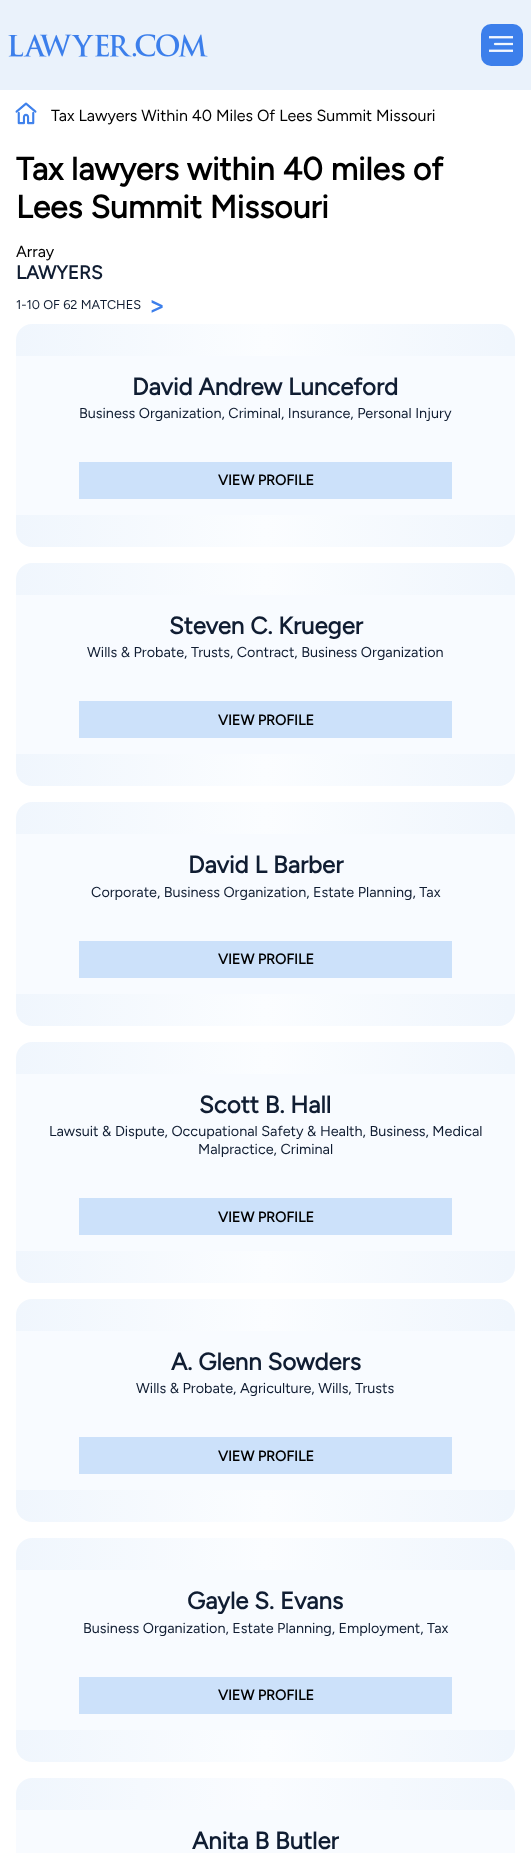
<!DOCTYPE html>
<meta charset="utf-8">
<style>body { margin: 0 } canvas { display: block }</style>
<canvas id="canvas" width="531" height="1853"></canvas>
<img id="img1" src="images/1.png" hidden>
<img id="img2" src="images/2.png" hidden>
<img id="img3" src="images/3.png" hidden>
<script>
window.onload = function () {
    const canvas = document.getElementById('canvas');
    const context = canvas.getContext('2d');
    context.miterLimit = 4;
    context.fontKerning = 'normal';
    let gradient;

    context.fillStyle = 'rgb(255, 255, 255)';
    context.fillRect(0, 0, 531, 1853);
    context.fillStyle = 'rgb(234, 242, 251)';
    context.fillRect(0, 0, 531, 90);
    context.drawImage(document.getElementById('img1'), 8, 34, 200, 23);
    context.fillStyle = 'rgb(60, 127, 235)';
    context.beginPath();
    context.roundRect(481, 24, 42, 42, 10);
    context.fill();
    context.drawImage(document.getElementById('img2'), 489, 36, 24, 16);
    context.drawImage(document.getElementById('img3'), 15, 102, 22, 23);
    gradient = context.createLinearGradient(16, 436, 515, 436);
    gradient.addColorStop(0, 'rgb(240, 246, 253)');
    gradient.addColorStop(0.5, 'rgb(251, 253, 255)');
    gradient.addColorStop(0.99, 'rgb(240, 246, 253)');
    context.fillStyle = gradient;
    context.beginPath();
    context.roundRect(16, 324, 499, 223, 16);
    context.fill();
    context.fillStyle = 'rgb(248, 251, 255)';
    context.fillRect(16, 356, 499, 159);
    context.fillStyle = 'rgb(204, 225, 250)';
    context.fillRect(79, 462, 373, 37);
    gradient = context.createLinearGradient(16, 675, 515, 675);
    gradient.addColorStop(0, 'rgb(240, 246, 253)');
    gradient.addColorStop(0.5, 'rgb(251, 253, 255)');
    gradient.addColorStop(0.99, 'rgb(240, 246, 253)');
    context.fillStyle = gradient;
    context.beginPath();
    context.roundRect(16, 563, 499, 223, 16);
    context.fill();
    context.fillStyle = 'rgb(248, 251, 255)';
    context.fillRect(16, 595, 499, 159);
    context.fillStyle = 'rgb(204, 225, 250)';
    context.fillRect(79, 701, 373, 37);
    gradient = context.createLinearGradient(16, 914, 515, 914);
    gradient.addColorStop(0, 'rgb(240, 246, 253)');
    gradient.addColorStop(0.5, 'rgb(251, 253, 255)');
    gradient.addColorStop(0.99, 'rgb(240, 246, 253)');
    context.fillStyle = gradient;
    context.beginPath();
    context.roundRect(16, 802, 499, 224, 16);
    context.fill();
    context.fillStyle = 'rgb(248, 251, 255)';
    context.fillRect(16, 834, 499, 160);
    context.fillStyle = 'rgb(204, 225, 250)';
    context.fillRect(79, 941, 373, 37);
    gradient = context.createLinearGradient(16, 1163, 515, 1163);
    gradient.addColorStop(0, 'rgb(240, 246, 253)');
    gradient.addColorStop(0.5, 'rgb(251, 253, 255)');
    gradient.addColorStop(0.99, 'rgb(240, 246, 253)');
    context.fillStyle = gradient;
    context.beginPath();
    context.roundRect(16, 1042, 499, 241, 16);
    context.fill();
    context.fillStyle = 'rgb(248, 251, 255)';
    context.fillRect(16, 1074, 499, 177);
    context.fillStyle = 'rgb(204, 225, 250)';
    context.fillRect(79, 1198, 373, 37);
    gradient = context.createLinearGradient(16, 1411, 515, 1411);
    gradient.addColorStop(0, 'rgb(240, 246, 253)');
    gradient.addColorStop(0.5, 'rgb(251, 253, 255)');
    gradient.addColorStop(0.99, 'rgb(240, 246, 253)');
    context.fillStyle = gradient;
    context.beginPath();
    context.roundRect(16, 1299, 499, 223, 16);
    context.fill();
    context.fillStyle = 'rgb(248, 251, 255)';
    context.fillRect(16, 1331, 499, 159);
    context.fillStyle = 'rgb(204, 225, 250)';
    context.fillRect(79, 1437, 373, 37);
    gradient = context.createLinearGradient(16, 1650, 515, 1650);
    gradient.addColorStop(0, 'rgb(240, 246, 253)');
    gradient.addColorStop(0.5, 'rgb(251, 253, 255)');
    gradient.addColorStop(0.99, 'rgb(240, 246, 253)');
    context.fillStyle = gradient;
    context.beginPath();
    context.roundRect(16, 1538, 499, 224, 16);
    context.fill();
    context.fillStyle = 'rgb(248, 251, 255)';
    context.fillRect(16, 1570, 499, 160);
    context.fillStyle = 'rgb(204, 225, 250)';
    context.fillRect(79, 1677, 373, 37);
    gradient = context.createLinearGradient(16, 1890, 515, 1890);
    gradient.addColorStop(0, 'rgb(240, 246, 253)');
    gradient.addColorStop(0.5, 'rgb(250, 252, 255)');
    gradient.addColorStop(0.99, 'rgb(240, 246, 253)');
    context.fillStyle = gradient;
    context.beginPath();
    context.roundRect(16, 1778, 499, 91, 16);
    context.fill();
    context.fillStyle = 'rgb(248, 251, 255)';
    context.fillRect(16, 1810, 499, 43);
    context.font = '16px Figtree';
    context.fillStyle = 'rgb(0, 0, 0)';
    context.fillText('Tax Lawyers Within 40 Miles Of Lees Summit Missouri', 51, 121);
    context.font = 'bold 32px Figtree';
    context.fillText('Tax lawyers within 40 miles of', 16, 180);
    context.fillText('Lees Summit Missouri', 16, 218);
    context.font = '16px Figtree';
    context.fillText('Array', 16, 257);
    context.font = 'bold 19px Figtree';
    context.fillStyle = 'rgb(16, 29, 50)';
    context.fillText('LAWYERS', 16, 279);
    context.font = '12.75px Figtree';
    context.fillText('1-10 OF 62 MATCHES', 16, 309);
    context.font = '32px Figtree';
    context.fillStyle = 'rgb(60, 127, 235)';
    context.fillText('>', 147, 316);
    context.font = 'bold 24px Figtree';
    context.fillStyle = 'rgb(16, 29, 50)';
    context.fillText('David Andrew Lunceford', 132, 395);
    context.font = '14.4px Figtree';
    context.fillText('Business Organization, Criminal, Insurance, Personal Injury', 79, 418);
    context.font = 'bold 14.4px Figtree';
    context.fillStyle = 'rgb(0, 0, 0)';
    context.fillText('VIEW PROFILE', 218, 485);
    context.font = 'bold 24px Figtree';
    context.fillStyle = 'rgb(16, 29, 50)';
    context.fillText('Steven C. Krueger', 169, 634);
    context.font = '14.4px Figtree';
    context.fillText('Wills & Probate, Trusts, Contract, Business Organization', 87, 657);
    context.font = 'bold 14.4px Figtree';
    context.fillStyle = 'rgb(0, 0, 0)';
    context.fillText('VIEW PROFILE', 218, 725);
    context.font = 'bold 24px Figtree';
    context.fillStyle = 'rgb(16, 29, 50)';
    context.fillText('David L Barber', 188, 873);
    context.font = '14.4px Figtree';
    context.fillText('Corporate, Business Organization, Estate Planning, Tax', 91, 897);
    context.font = 'bold 14.4px Figtree';
    context.fillStyle = 'rgb(0, 0, 0)';
    context.fillText('VIEW PROFILE', 218, 964);
    context.font = 'bold 24px Figtree';
    context.fillStyle = 'rgb(16, 29, 50)';
    context.fillText('Scott B. Hall', 199, 1113);
    context.font = '14.4px Figtree';
    context.fillText('Lawsuit & Dispute, Occupational Safety & Health, Business, Medical', 49, 1136);
    context.fillText('Malpractice, Criminal', 198, 1154);
    context.font = 'bold 14.4px Figtree';
    context.fillStyle = 'rgb(0, 0, 0)';
    context.fillText('VIEW PROFILE', 218, 1222);
    context.font = 'bold 24px Figtree';
    context.fillStyle = 'rgb(16, 29, 50)';
    context.fillText('A. Glenn Sowders', 171, 1370);
    context.font = '14.4px Figtree';
    context.fillText('Wills & Probate, Agriculture, Wills, Trusts', 136, 1393);
    context.font = 'bold 14.4px Figtree';
    context.fillStyle = 'rgb(0, 0, 0)';
    context.fillText('VIEW PROFILE', 218, 1461);
    context.font = 'bold 24px Figtree';
    context.fillStyle = 'rgb(16, 29, 50)';
    context.fillText('Gayle S. Evans', 187, 1609);
    context.font = '14.4px Figtree';
    context.fillText('Business Organization, Estate Planning, Employment, Tax', 83, 1633);
    context.font = 'bold 14.4px Figtree';
    context.fillStyle = 'rgb(0, 0, 0)';
    context.fillText('VIEW PROFILE', 218, 1700);
    context.font = 'bold 24px Figtree';
    context.fillStyle = 'rgb(16, 29, 50)';
    context.fillText('Anita B Butler', 192, 1849);
};
</script>
